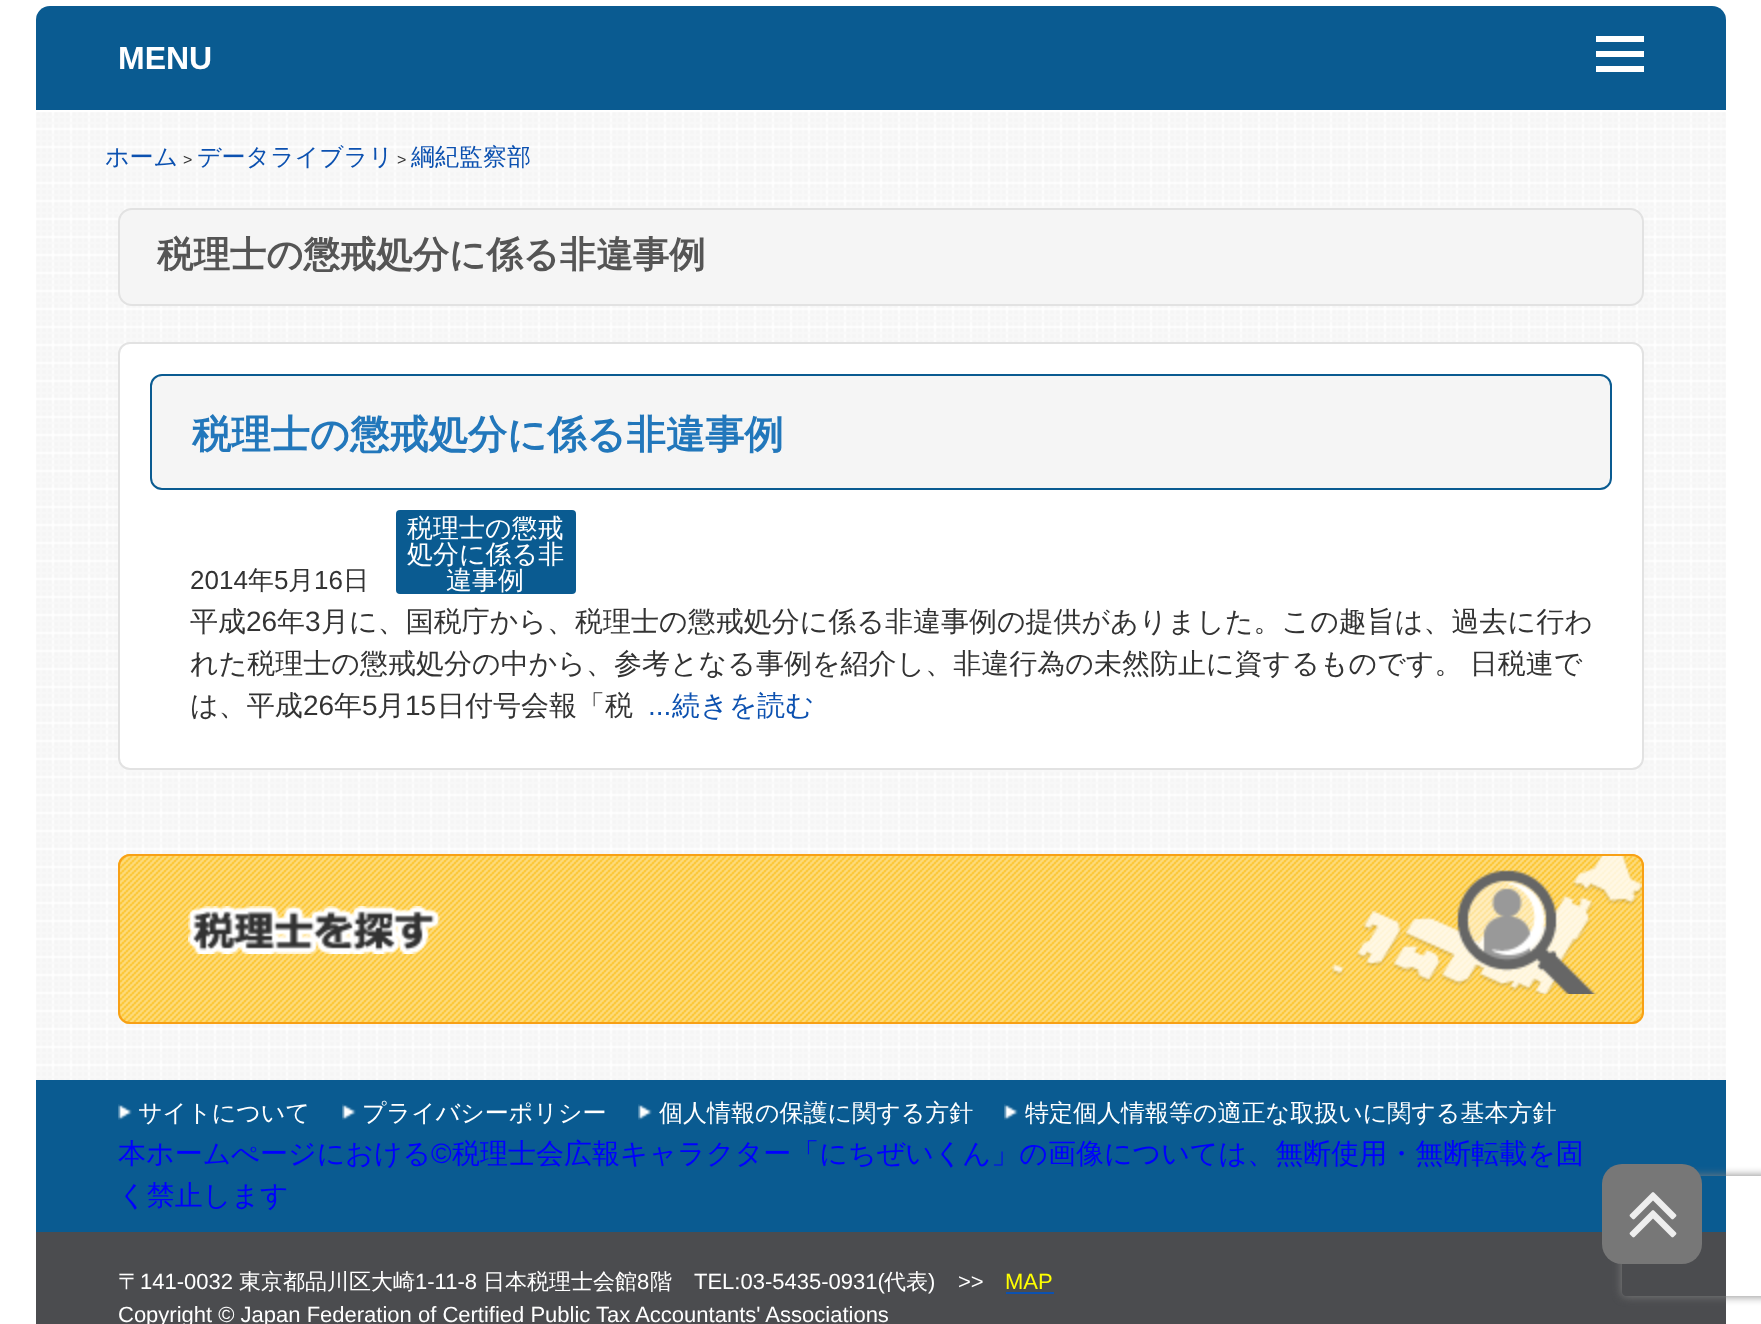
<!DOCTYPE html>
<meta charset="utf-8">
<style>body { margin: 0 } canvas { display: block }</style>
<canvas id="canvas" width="1761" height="1324"></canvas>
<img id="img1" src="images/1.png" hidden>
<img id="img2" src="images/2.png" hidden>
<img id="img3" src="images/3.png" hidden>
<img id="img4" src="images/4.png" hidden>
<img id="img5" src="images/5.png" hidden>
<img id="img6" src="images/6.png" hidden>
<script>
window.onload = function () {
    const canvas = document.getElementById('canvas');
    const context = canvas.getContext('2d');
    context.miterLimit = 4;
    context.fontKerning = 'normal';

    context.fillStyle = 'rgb(255, 255, 255)';
    context.fillRect(0, 0, 1761, 1324);
    context.fillStyle = 'rgb(10, 91, 145)';
    context.beginPath();
    context.roundRect(36, 6, 1690, 104, [14, 14, 0, 0]);
    context.fill();
    context.fillStyle = 'rgb(255, 255, 255)';
    context.beginPath();
    context.moveTo(1596, 72);
    context.lineTo(1596, 66);
    context.lineTo(1644, 66);
    context.lineTo(1644, 72);
    context.closePath();
    context.moveTo(1596, 57);
    context.lineTo(1596, 51);
    context.lineTo(1644, 51);
    context.lineTo(1644, 57);
    context.closePath();
    context.moveTo(1596, 42);
    context.lineTo(1596, 36);
    context.lineTo(1644, 36);
    context.lineTo(1644, 42);
    context.closePath();
    context.fill();
    context.drawImage(document.getElementById('img1'), 36, 112, 1690, 968);
    context.fillStyle = 'rgb(245, 245, 245)';
    context.beginPath();
    context.roundRect(119, 209, 1524, 96, 13);
    context.fill();
    context.strokeStyle = 'rgb(226, 226, 226)';
    context.lineWidth = 2;
    context.stroke();
    context.fillStyle = 'rgb(255, 255, 255)';
    context.beginPath();
    context.roundRect(119, 343, 1524, 426, 11);
    context.fill();
    context.stroke();
    context.fillStyle = 'rgb(245, 245, 245)';
    context.beginPath();
    context.roundRect(151, 375, 1460, 114, 11);
    context.fill();
    context.strokeStyle = 'rgb(10, 91, 145)';
    context.stroke();
    context.fillStyle = 'rgb(10, 91, 145)';
    context.beginPath();
    context.roundRect(396, 510, 180, 84, 4);
    context.fill();
    context.fillStyle = 'rgb(253, 221, 133)';
    context.beginPath();
    context.roundRect(118, 854, 1526, 170, 12);
    context.fill();
    context.drawImage(document.getElementById('img2'), 118, 854, 1526, 170);
    context.beginPath();
    context.roundRect(119, 855, 1524, 168, 11);
    context.strokeStyle = 'rgb(248, 160, 21)';
    context.stroke();
    context.drawImage(document.getElementById('img3'), 1332, 856, 310, 138);
    context.drawImage(document.getElementById('img4'), 188, 906, 252, 48);
    context.fillStyle = 'rgb(75, 76, 79)';
    context.fillRect(36, 1232, 1690, 92);
    context.fillStyle = 'rgb(10, 91, 145)';
    context.fillRect(36, 1080, 1690, 152);
    context.drawImage(document.getElementById('img5'), 118, 1104, 14, 16);
    context.drawImage(document.getElementById('img5'), 342, 1104, 14, 16);
    context.drawImage(document.getElementById('img5'), 638, 1104, 14, 16);
    context.drawImage(document.getElementById('img5'), 1004, 1104, 14, 16);
    context.fillStyle = 'rgb(12, 81, 176)';
    context.fillRect(1006, 1292, 48, 2);
    context.save();
    context.beginPath();
    context.moveTo(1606, 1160);
    context.lineTo(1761, 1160);
    context.lineTo(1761, 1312);
    context.lineTo(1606, 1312);
    context.closePath();
    context.moveTo(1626, 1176);
    context.lineTo(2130, 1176);
    context.bezierCurveTo(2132, 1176, 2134, 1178, 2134, 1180);
    context.lineTo(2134, 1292);
    context.bezierCurveTo(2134, 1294, 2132, 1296, 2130, 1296);
    context.lineTo(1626, 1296);
    context.bezierCurveTo(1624, 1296, 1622, 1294, 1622, 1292);
    context.lineTo(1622, 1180);
    context.bezierCurveTo(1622, 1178, 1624, 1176, 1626, 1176);
    context.closePath();
    context.clip('evenodd');
    context.fillStyle = 'rgb(128, 128, 128)';
    context.filter = 'blur(5px)';
    context.beginPath();
    context.roundRect(1622, 1176, 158, 120, 4);
    context.fill();
    context.filter = 'none';
    context.restore();
    context.fillStyle = 'rgb(119, 119, 119)';
    context.beginPath();
    context.roundRect(1602, 1164, 100, 100, 20);
    context.fill();
    context.drawImage(document.getElementById('img6'), 1629, 1192, 48, 46);
    context.font = 'bold 32px Liberation Sans';
    context.fillStyle = 'rgb(255, 255, 255)';
    context.fillText('MENU', 118, 69);
    context.font = '500 24px WenQuanYi Zen Hei';
    context.fillStyle = 'rgb(12, 81, 176)';
    context.fillText('ホーム', 105, 165);
    context.font = '16px Liberation Sans';
    context.fillStyle = 'rgb(51, 51, 51)';
    context.fillText('>', 183, 165);
    context.font = '500 24px WenQuanYi Zen Hei';
    context.fillStyle = 'rgb(12, 81, 176)';
    context.fillText('データライブラリ', 197, 165);
    context.font = '16px Liberation Sans';
    context.fillStyle = 'rgb(51, 51, 51)';
    context.fillText('>', 397, 165);
    context.font = '500 24px WenQuanYi Zen Hei';
    context.fillStyle = 'rgb(12, 81, 176)';
    context.fillText('綱紀監察部', 411, 165);
    context.font = 'bold 36.4px WenQuanYi Zen Hei';
    context.fillStyle = 'rgb(85, 85, 85)';
    context.fillText('税理士の懲戒処分に係る非違事例', 157, 267);
    context.font = 'bold 39.25px WenQuanYi Zen Hei';
    context.fillStyle = 'rgb(34, 119, 187)';
    context.fillText('税理士の懲戒処分に係る非違事例', 192, 448);
    context.font = '26px Liberation Sans';
    context.fillStyle = 'rgb(51, 51, 51)';
    context.fillText('2014', 190, 589);
    context.font = '500 26px WenQuanYi Zen Hei';
    context.fillText('年', 248, 589);
    context.font = '26px Liberation Sans';
    context.fillText('5', 274, 589);
    context.font = '500 26px WenQuanYi Zen Hei';
    context.fillText('月', 288, 589);
    context.font = '26px Liberation Sans';
    context.fillText('16', 314, 589);
    context.font = '500 26px WenQuanYi Zen Hei';
    context.fillText('日', 343, 589);
    context.fillStyle = 'rgb(255, 255, 255)';
    context.fillText('税理士の懲戒', 407, 537);
    context.fillText('処分に係る非', 407, 563);
    context.fillText('違事例', 446, 589);
    context.font = '500 28px WenQuanYi Zen Hei';
    context.fillStyle = 'rgb(51, 51, 51)';
    context.fillText('平成', 190, 631);
    context.font = '28px Liberation Sans';
    context.fillText('26', 246, 631);
    context.font = '500 28px WenQuanYi Zen Hei';
    context.fillText('年', 277, 631);
    context.font = '28px Liberation Sans';
    context.fillText('3', 305, 631);
    context.font = '500 28px WenQuanYi Zen Hei';
    context.fillText('月に、国税庁から、税理士の懲戒処分に係る非違事例の提供がありました。この趣旨は、過去に行わ', 321, 631);
    context.wordSpacing = '-1px';
    context.fillText('れた税理士の懲戒処分の中から、参考となる事例を紹介し、非違行為の未然防止に資するものです。 日税連で', 190, 673);
    context.wordSpacing = '0px';
    context.fillText('は、平成', 190, 715);
    context.font = '28px Liberation Sans';
    context.fillText('26', 303, 715);
    context.font = '500 28px WenQuanYi Zen Hei';
    context.fillText('年', 334, 715);
    context.font = '28px Liberation Sans';
    context.fillText('5', 362, 715);
    context.font = '500 28px WenQuanYi Zen Hei';
    context.fillText('月', 377, 715);
    context.font = '28px Liberation Sans';
    context.fillText('15', 405, 715);
    context.font = '500 28px WenQuanYi Zen Hei';
    context.fillText('日付号会報「税', 437, 715);
    context.font = '28px Liberation Sans';
    context.fillStyle = 'rgb(12, 81, 176)';
    context.fillText('...', 648, 715);
    context.font = '500 28px WenQuanYi Zen Hei';
    context.fillText('続きを読む', 672, 715);
    context.font = '500 24px WenQuanYi Zen Hei';
    context.fillStyle = 'rgb(255, 255, 255)';
    context.fillText('サイトについて', 138, 1121);
    context.fillText('プライバシーポリシー', 362, 1121);
    context.fillText('個人情報の保護に関する方針', 659, 1121);
    context.fillText('特定個人情報等の適正な取扱いに関する基本方針', 1025, 1121);
    context.font = '500 28px WenQuanYi Zen Hei';
    context.fillStyle = 'rgb(0, 0, 255)';
    context.fillText('本ホームぺージにおける', 118, 1163);
    context.font = '28px Liberation Sans';
    context.fillText('©', 431, 1163);
    context.font = '500 28px WenQuanYi Zen Hei';
    context.fillText('税理士会広報キャラクター「にちぜいくん」の画像については、無断使用・無断転載を固', 452, 1163);
    context.fillText('く禁止します', 118, 1205);
    context.font = '500 22px WenQuanYi Zen Hei';
    context.fillStyle = 'rgb(255, 255, 255)';
    context.fillText('〒', 118, 1289);
    context.font = '22px Liberation Sans';
    context.fillText('141-0032', 140, 1289);
    context.font = '500 22px WenQuanYi Zen Hei';
    context.fillText('東京都品川区大崎', 239, 1289);
    context.font = '22px Liberation Sans';
    context.fillText('1-11-8', 415, 1289);
    context.font = '500 22px WenQuanYi Zen Hei';
    context.fillText('日本税理士会館', 483, 1289);
    context.font = '22px Liberation Sans';
    context.fillText('8', 637, 1289);
    context.font = '500 22px WenQuanYi Zen Hei';
    context.fillText('階', 650, 1289);
    context.font = '22px Liberation Sans';
    context.fillText('TEL:03-5435-0931(', 694, 1289);
    context.font = '500 22px WenQuanYi Zen Hei';
    context.fillText('代表', 884, 1289);
    context.font = '22px Liberation Sans';
    context.fillText(')', 928, 1289);
    context.fillText('>>', 958, 1289);
    context.fillStyle = 'rgb(255, 255, 0)';
    context.fillText('MAP', 1005, 1289);
    context.fillStyle = 'rgb(255, 255, 255)';
    context.fillText('Copyright © Japan Federation of Certified Public Tax Accountants\' Associations', 118, 1322);
};
</script>
